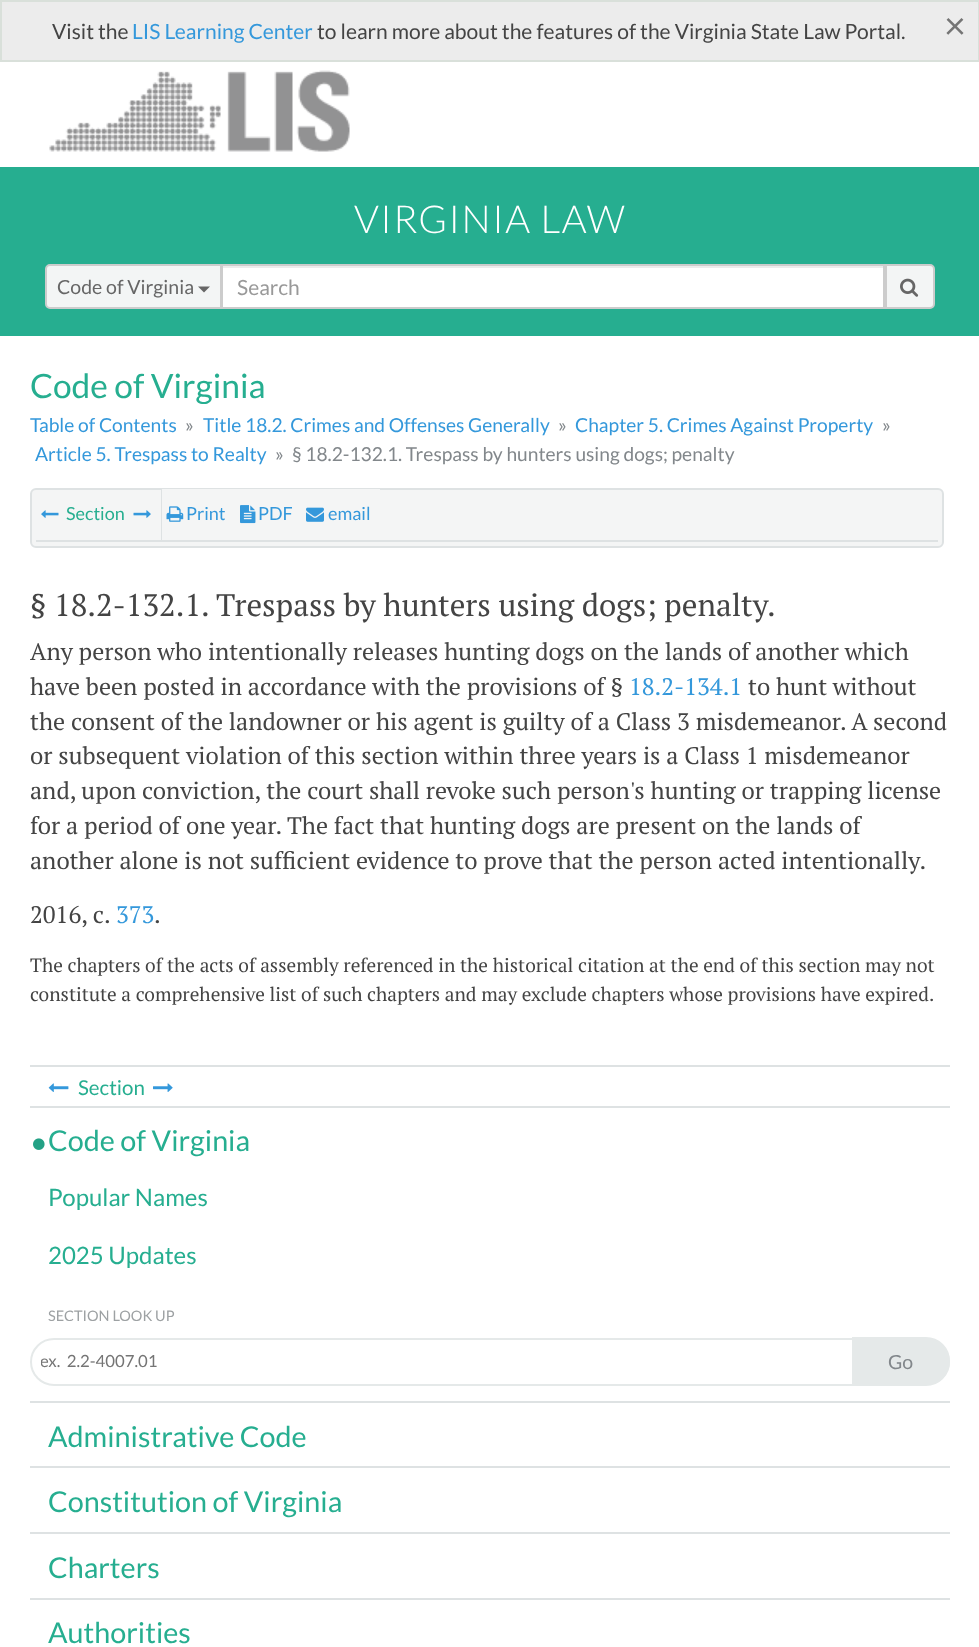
<!DOCTYPE html>
<meta charset="utf-8">
<style>body { margin: 0 } canvas { display: block }</style>
<canvas id="canvas" width="979" height="1647"></canvas>
<img id="img1" src="images/1.png" hidden>
<img id="img2" src="images/2.png" hidden>
<img id="img3" src="images/3.png" hidden>
<img id="img4" src="images/4.png" hidden>
<img id="img5" src="images/5.png" hidden>
<img id="img6" src="images/6.png" hidden>
<img id="img7" src="images/7.png" hidden>
<img id="img8" src="images/8.png" hidden>
<img id="img9" src="images/9.png" hidden>
<img id="img10" src="images/10.png" hidden>
<script>
window.onload = function () {
    const canvas = document.getElementById('canvas');
    const context = canvas.getContext('2d');
    context.miterLimit = 4;
    context.fontKerning = 'normal';

    context.fillStyle = 'rgb(255, 255, 255)';
    context.fillRect(0, 0, 979, 1647);
    context.fillStyle = 'rgb(236, 236, 236)';
    context.beginPath();
    context.rect(1, 1, 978, 60);
    context.fill();
    context.strokeStyle = 'rgb(217, 224, 218)';
    context.lineWidth = 2;
    context.stroke();
    context.drawImage(document.getElementById('img1'), 49, 70, 301, 82);
    context.fillStyle = 'rgb(38, 174, 144)';
    context.fillRect(0, 167, 979, 169);
    context.fillStyle = 'rgb(255, 255, 255)';
    context.fillRect(223, 268, 660, 39);
    context.fillStyle = 'rgb(236, 236, 236)';
    context.fillRect(222, 266, 662, 2);
    context.strokeStyle = 'rgb(204, 204, 204)';
    context.strokeRect(222, 265, 662, 43);
    context.fillStyle = 'rgb(243, 245, 245)';
    context.beginPath();
    context.roundRect(46, 265, 175, 43, [4, 0, 0, 4]);
    context.fill();
    context.stroke();
    context.fillStyle = 'rgb(102, 102, 102)';
    context.beginPath();
    context.moveTo(198, 286.5);
    context.lineTo(210, 286.5);
    context.lineTo(204, 292.5);
    context.closePath();
    context.fill();
    context.fillStyle = 'rgb(243, 245, 245)';
    context.beginPath();
    context.roundRect(886, 265, 48, 43, [0, 4, 4, 0]);
    context.fill();
    context.stroke();
    context.drawImage(document.getElementById('img2'), 900, 278, 19, 19);
    context.fillStyle = 'rgb(244, 245, 245)';
    context.beginPath();
    context.roundRect(31, 489, 912, 58, 5);
    context.fill();
    context.strokeStyle = 'rgb(222, 226, 227)';
    context.stroke();
    context.fillStyle = 'rgb(222, 226, 227)';
    context.fillRect(161, 489, 1, 51);
    context.drawImage(document.getElementById('img3'), 41, 510, 18, 8);
    context.drawImage(document.getElementById('img4'), 133, 510, 18, 8);
    context.fillStyle = 'rgb(244, 245, 245)';
    context.fillRect(162, 489, 218, 1);
    context.drawImage(document.getElementById('img5'), 166, 506, 18, 16);
    context.drawImage(document.getElementById('img6'), 240, 505, 16, 19);
    context.drawImage(document.getElementById('img7'), 306, 507, 18, 15);
    context.fillStyle = 'rgb(222, 226, 227)';
    context.fillRect(36, 540, 902, 2);
    context.fillRect(30, 1065, 920, 2);
    context.drawImage(document.getElementById('img8'), 48, 1083, 21, 9);
    context.drawImage(document.getElementById('img9'), 153, 1083, 20, 9);
    context.fillRect(30, 1106, 920, 2);
    context.drawImage(document.getElementById('img10'), 33, 1138, 12, 12);
    context.beginPath();
    context.roundRect(31, 1339, 918, 46, 23);
    context.strokeStyle = 'rgb(229, 233, 233)';
    context.stroke();
    context.fillStyle = 'rgb(229, 233, 233)';
    context.beginPath();
    context.roundRect(852, 1337, 98, 48, [0, 24, 24, 0]);
    context.fill();
    context.fillStyle = 'rgb(222, 226, 227)';
    context.fillRect(30, 1401, 920, 2);
    context.fillRect(30, 1466, 920, 2);
    context.fillRect(30, 1532, 920, 2);
    context.fillRect(30, 1598, 920, 2);
    context.font = '21px Lato';
    context.fillStyle = 'rgb(68, 68, 68)';
    context.fillText('Visit the', 52, 39);
    context.fillStyle = 'rgb(52, 152, 219)';
    context.fillText('LIS Learning Center', 132, 39);
    context.fillStyle = 'rgb(68, 68, 68)';
    context.fillText('to learn more about the features of the Virginia State Law Portal.', 317, 39);
    context.font = '38px Lato';
    context.fillStyle = 'rgb(117, 117, 117)';
    context.fillText('×', 944, 39);
    context.letterSpacing = '1.5px';
    context.font = '300 38.5px Lato';
    context.fillStyle = 'rgb(255, 255, 255)';
    context.fillText('VIRGINIA LAW', 354, 233);
    context.letterSpacing = '0px';
    context.font = '19.5px Lato';
    context.fillStyle = 'rgb(102, 102, 102)';
    context.fillText('Code of Virginia', 57, 294);
    context.font = '21px Lato';
    context.fillStyle = 'rgb(153, 153, 153)';
    context.fillText('Search', 237, 295);
    context.font = '33.5px Lato';
    context.fillStyle = 'rgb(38, 174, 144)';
    context.fillText('Code of Virginia', 30, 398);
    context.font = '19.2px Lato';
    context.fillStyle = 'rgb(52, 152, 219)';
    context.fillText('Table of Contents', 30, 432);
    context.fillStyle = 'rgb(130, 135, 139)';
    context.fillText('»', 185, 432);
    context.fillStyle = 'rgb(52, 152, 219)';
    context.fillText('Title 18.2. Crimes and Offenses Generally', 203, 432);
    context.fillStyle = 'rgb(130, 135, 139)';
    context.fillText('»', 558, 432);
    context.fillStyle = 'rgb(52, 152, 219)';
    context.fillText('Chapter 5. Crimes Against Property', 575, 432);
    context.fillStyle = 'rgb(130, 135, 139)';
    context.fillText('»', 882, 432);
    context.fillStyle = 'rgb(52, 152, 219)';
    context.fillText('Article 5. Trespass to Realty', 35, 461);
    context.fillStyle = 'rgb(130, 135, 139)';
    context.fillText('»', 275, 461);
    context.fillText('§ 18.2-132.1. Trespass by hunters using dogs; penalty', 292, 461);
    context.font = '18px Lato';
    context.fillStyle = 'rgb(38, 174, 144)';
    context.fillText('Section', 66, 520);
    context.fillStyle = 'rgb(52, 152, 219)';
    context.fillText('Print', 186, 520);
    context.fillText('PDF', 258, 520);
    context.fillText('email', 328, 520);
    context.font = '31.2px PT Serif';
    context.fillStyle = 'rgb(68, 68, 68)';
    context.fillText('§ 18.2-132.1. Trespass by hunters using dogs; penalty.', 30, 616);
    context.font = '24px PT Serif';
    context.fillText('Any person who intentionally releases hunting dogs on the lands of another which', 30, 660);
    context.fillText('have been posted in accordance with the provisions of §', 30, 695);
    context.fillStyle = 'rgb(52, 152, 219)';
    context.fillText('18.2-134.1', 629, 695);
    context.fillStyle = 'rgb(68, 68, 68)';
    context.fillText('to hunt without', 748, 695);
    context.fillText('the consent of the landowner or his agent is guilty of a Class 3 misdemeanor. A second', 30, 730);
    context.fillText('or subsequent violation of this section within three years is a Class 1 misdemeanor', 30, 764);
    context.fillText('and, upon conviction, the court shall revoke such person\'s hunting or trapping license', 30, 799);
    context.fillText('for a period of one year. The fact that hunting dogs are present on the lands of', 30, 834);
    context.fillText('another alone is not sufficient evidence to prove that the person acted intentionally.', 30, 869);
    context.fillText('2016, c.', 30, 923);
    context.fillStyle = 'rgb(52, 152, 219)';
    context.fillText('373', 116, 923);
    context.fillStyle = 'rgb(68, 68, 68)';
    context.fillText('.', 154, 923);
    context.font = '19.2px PT Serif';
    context.fillText('The chapters of the acts of assembly referenced in the historical citation at the end of this section may not', 30, 972);
    context.fillText('constitute a comprehensive list of such chapters and may exclude chapters whose provisions have expired.', 30, 1001);
    context.font = '20.5px Lato';
    context.fillStyle = 'rgb(38, 174, 144)';
    context.fillText('Section', 78, 1095);
    context.font = '28.75px Lato';
    context.fillText('Code of Virginia', 48, 1151);
    context.font = '24px Lato';
    context.fillText('Popular Names', 48, 1206);
    context.fillText('2025 Updates', 48, 1264);
    context.font = '14.5px Lato';
    context.fillStyle = 'rgb(157, 161, 163)';
    context.fillText('SECTION LOOK UP', 48, 1321);
    context.save();
    context.beginPath();
    context.rect(41, 1350, 816, 20);
    context.clip();
    context.font = '16.75px Lato';
    context.fillStyle = 'rgb(117, 117, 117)';
    context.fillText('ex.  2.2-4007.01', 40, 1367);
    context.restore();
    context.font = '19.5px Lato';
    context.fillStyle = 'rgb(130, 135, 139)';
    context.fillText('Go', 888, 1369);
    context.font = '28.75px Lato';
    context.fillStyle = 'rgb(38, 174, 144)';
    context.fillText('Administrative Code', 48, 1447);
    context.fillText('Constitution of Virginia', 48, 1512);
    context.fillText('Charters', 48, 1578);
    context.fillText('Authorities', 48, 1643);
};
</script>
